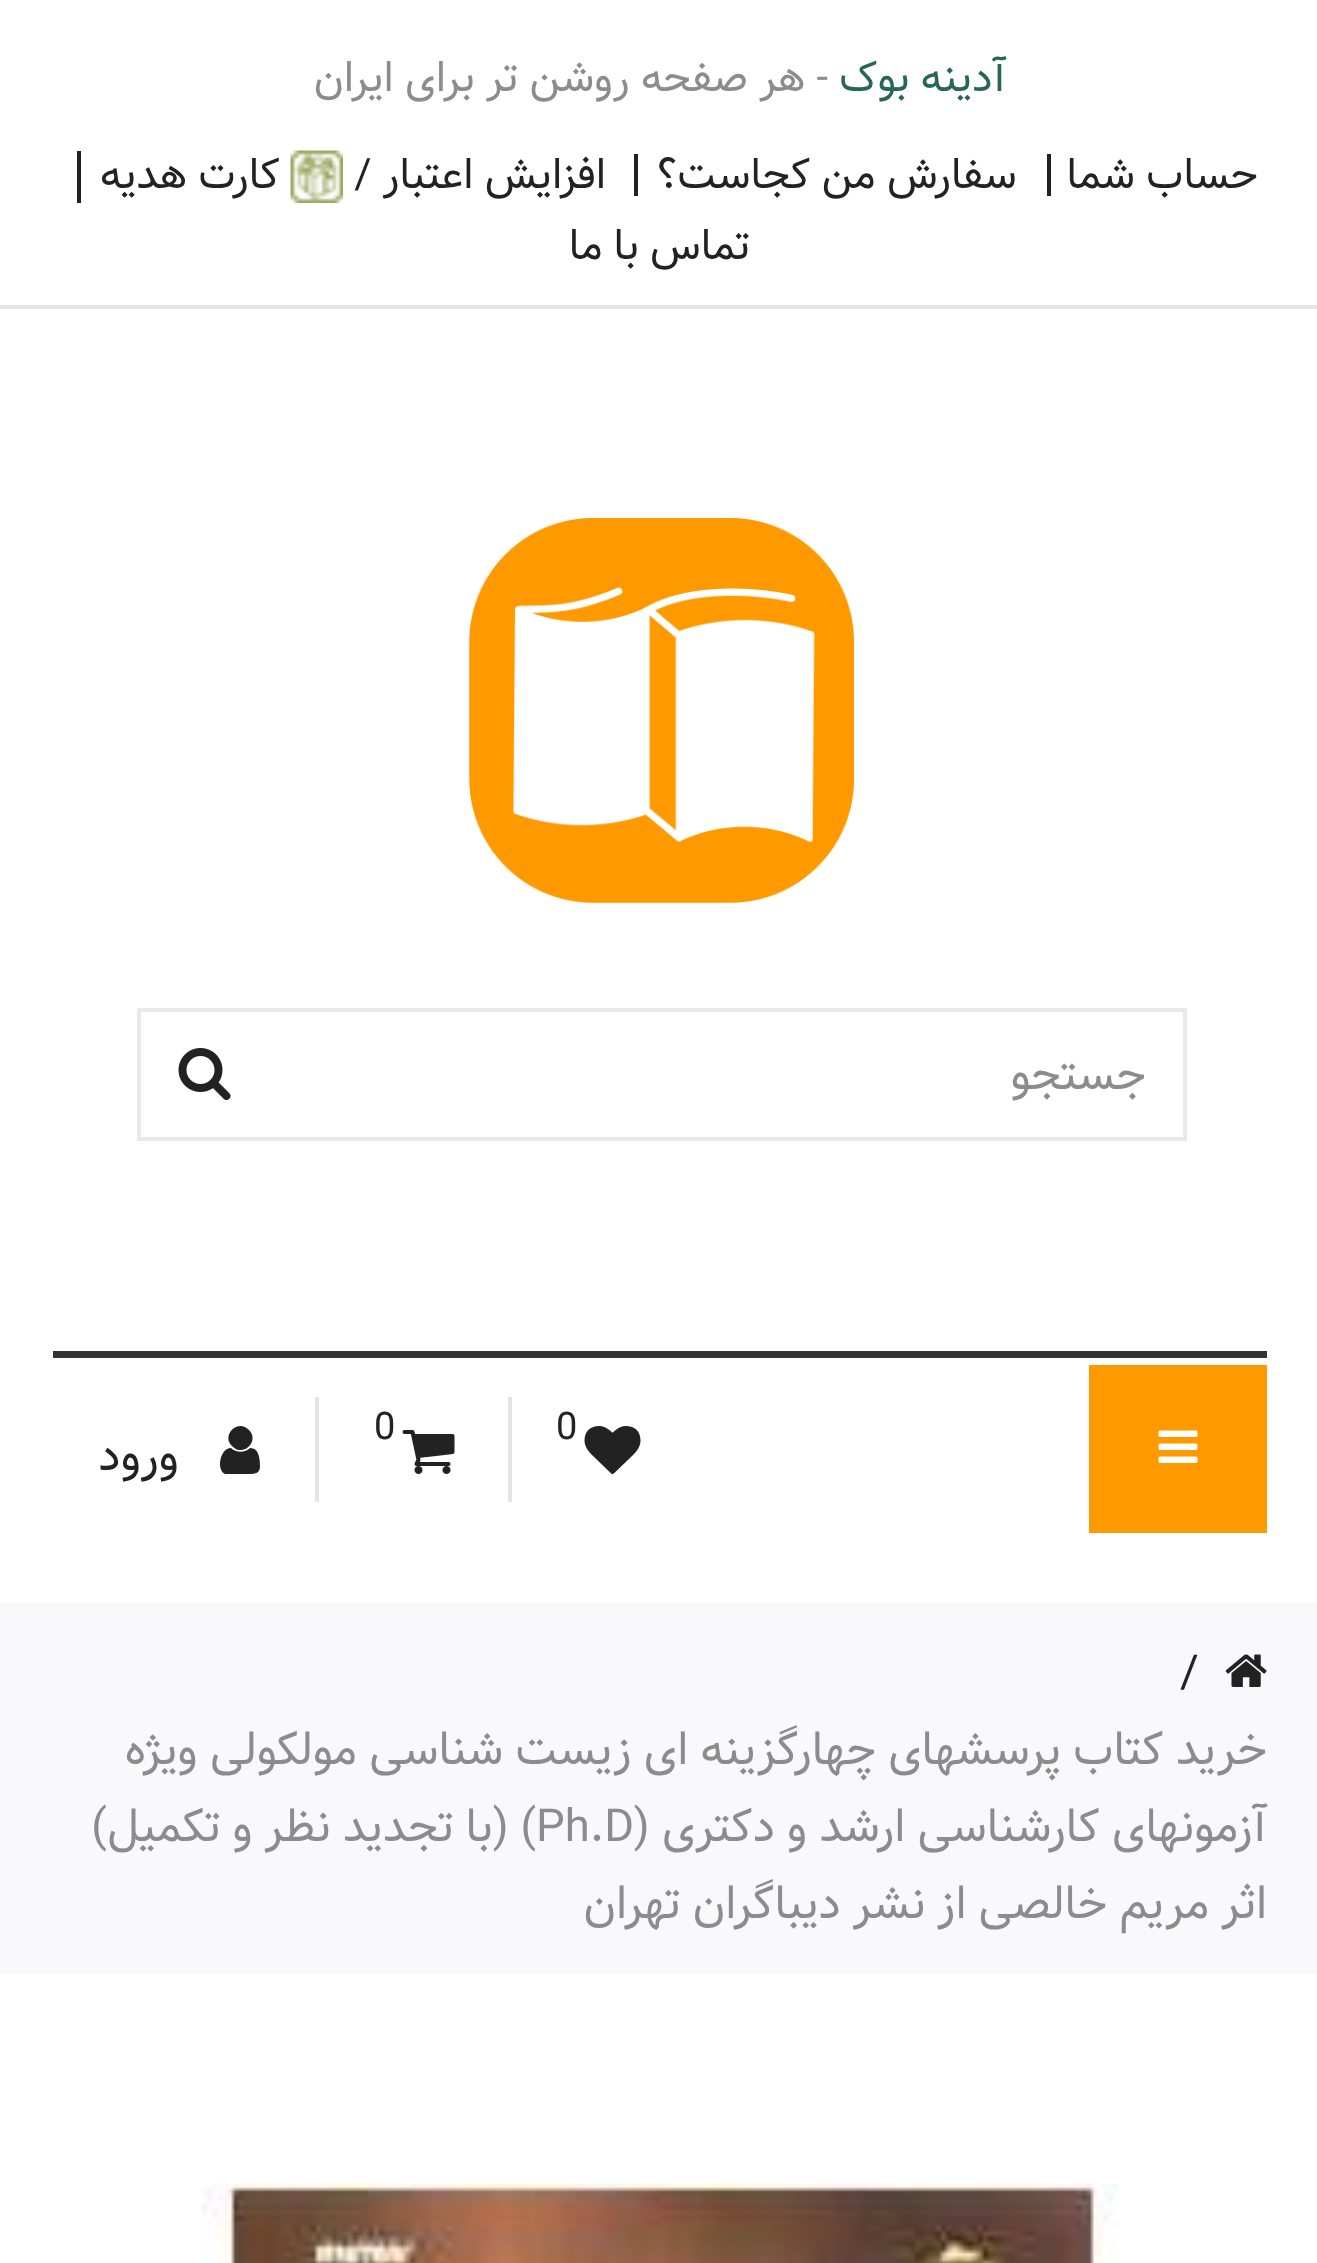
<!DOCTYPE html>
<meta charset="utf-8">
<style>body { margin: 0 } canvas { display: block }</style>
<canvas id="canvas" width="1317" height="2263"></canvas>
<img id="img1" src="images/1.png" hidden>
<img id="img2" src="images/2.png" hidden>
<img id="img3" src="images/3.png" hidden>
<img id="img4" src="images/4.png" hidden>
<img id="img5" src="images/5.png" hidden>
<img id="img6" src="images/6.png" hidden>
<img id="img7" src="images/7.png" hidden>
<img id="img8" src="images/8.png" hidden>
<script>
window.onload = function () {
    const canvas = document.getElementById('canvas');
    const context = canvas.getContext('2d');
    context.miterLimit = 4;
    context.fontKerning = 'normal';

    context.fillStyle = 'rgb(255, 255, 255)';
    context.fillRect(0, 0, 1317, 2263);
    context.fillStyle = 'rgb(229, 229, 229)';
    context.fillRect(0, 305, 1317, 4);
    context.fillStyle = 'rgb(34, 34, 34)';
    context.fillRect(1047, 154, 4, 42);
    context.fillRect(634, 154, 4, 42);
    context.fillRect(77, 151, 4, 52);
    context.drawImage(document.getElementById('img1'), 290, 150, 53, 53);
    context.drawImage(document.getElementById('img2'), 469, 518, 385, 385);
    context.strokeStyle = 'rgb(233, 233, 233)';
    context.lineWidth = 4;
    context.strokeRect(139, 1010, 1046, 129);
    context.drawImage(document.getElementById('img3'), 178, 1048, 53, 52);
    context.fillStyle = 'rgb(51, 51, 51)';
    context.fillRect(53, 1351, 1214, 7);
    context.fillStyle = 'rgb(255, 153, 0)';
    context.fillRect(1089, 1365, 178, 168);
    context.drawImage(document.getElementById('img4'), 1158, 1430, 40, 33);
    context.drawImage(document.getElementById('img5'), 584, 1426, 57, 48);
    context.fillStyle = 'rgb(229, 229, 229)';
    context.fillRect(508, 1397, 4, 105);
    context.drawImage(document.getElementById('img6'), 402, 1430, 53, 44);
    context.fillRect(315, 1397, 4, 105);
    context.fillStyle = 'rgb(34, 34, 34)';
    context.beginPath();
    context.moveTo(260, 1466);
    context.bezierCurveTo(260, 1473, 256, 1474, 249, 1474);
    context.lineTo(225, 1474);
    context.bezierCurveTo(216, 1470, 220, 1448, 231, 1448);
    context.bezierCurveTo(236, 1453, 245, 1453, 250, 1448);
    context.bezierCurveTo(259, 1448, 260, 1459, 260, 1466);
    context.closePath();
    context.moveTo(249, 1430);
    context.bezierCurveTo(260, 1441, 243, 1458, 232, 1446);
    context.bezierCurveTo(221, 1435, 238, 1418, 249, 1430);
    context.closePath();
    context.fill();
    context.fillStyle = 'rgb(249, 249, 251)';
    context.fillRect(0, 1603, 1317, 371);
    context.drawImage(document.getElementById('img7'), 1225, 1654, 42, 33);
    context.drawImage(document.getElementById('img8'), 201, 2184, 919, 79);
    context.direction = 'rtl';
    context.font = '42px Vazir';
    context.fillStyle = 'rgb(39, 102, 88)';
    context.fillText('آدینه بوک', 1006, 91);
    context.fillStyle = 'rgb(140, 140, 140)';
    context.fillText('- هر صفحه روشن تر برای ایران', 828, 91);
    context.fillStyle = 'rgb(34, 34, 34)';
    context.fillText('حساب شما', 1258, 188);
    context.fillText('سفارش من کجاست؟', 1017, 188);
    context.fillText('افزایش اعتبار /', 606, 188);
    context.fillText('کارت هدیه', 280, 188);
    context.fillText('تماس با ما', 750, 259);
    context.font = '45.5px Vazir';
    context.fillStyle = 'rgb(140, 140, 140)';
    context.fillText('جستجو', 1146, 1089);
    context.direction = 'ltr';
    context.font = '38px Vazir';
    context.fillStyle = 'rgb(34, 34, 34)';
    context.fillText('0', 556, 1439);
    context.fillText('0', 374, 1439);
    context.direction = 'rtl';
    context.font = '45.5px Vazir';
    context.fillText('ورود', 179, 1470);
    context.direction = 'ltr';
    context.fillText('/', 1180, 1687);
    context.direction = 'rtl';
    context.fillStyle = 'rgb(140, 140, 140)';
    context.fillText('خرید کتاب پرسشهای چهارگزینه ای زیست شناسی مولکولی ویژه', 1267, 1764);
    context.fillText('آزمونهای کارشناسی ارشد و دکتری (', 1267, 1841);
    context.direction = 'ltr';
    context.fillText('Ph.D', 536, 1841);
    context.direction = 'rtl';
    context.fillText(') (با تجدید نظر و تکمیل)', 536, 1841);
    context.fillText('اثر مریم خالصی از نشر دیباگران تهران', 1267, 1918);
};
</script>
